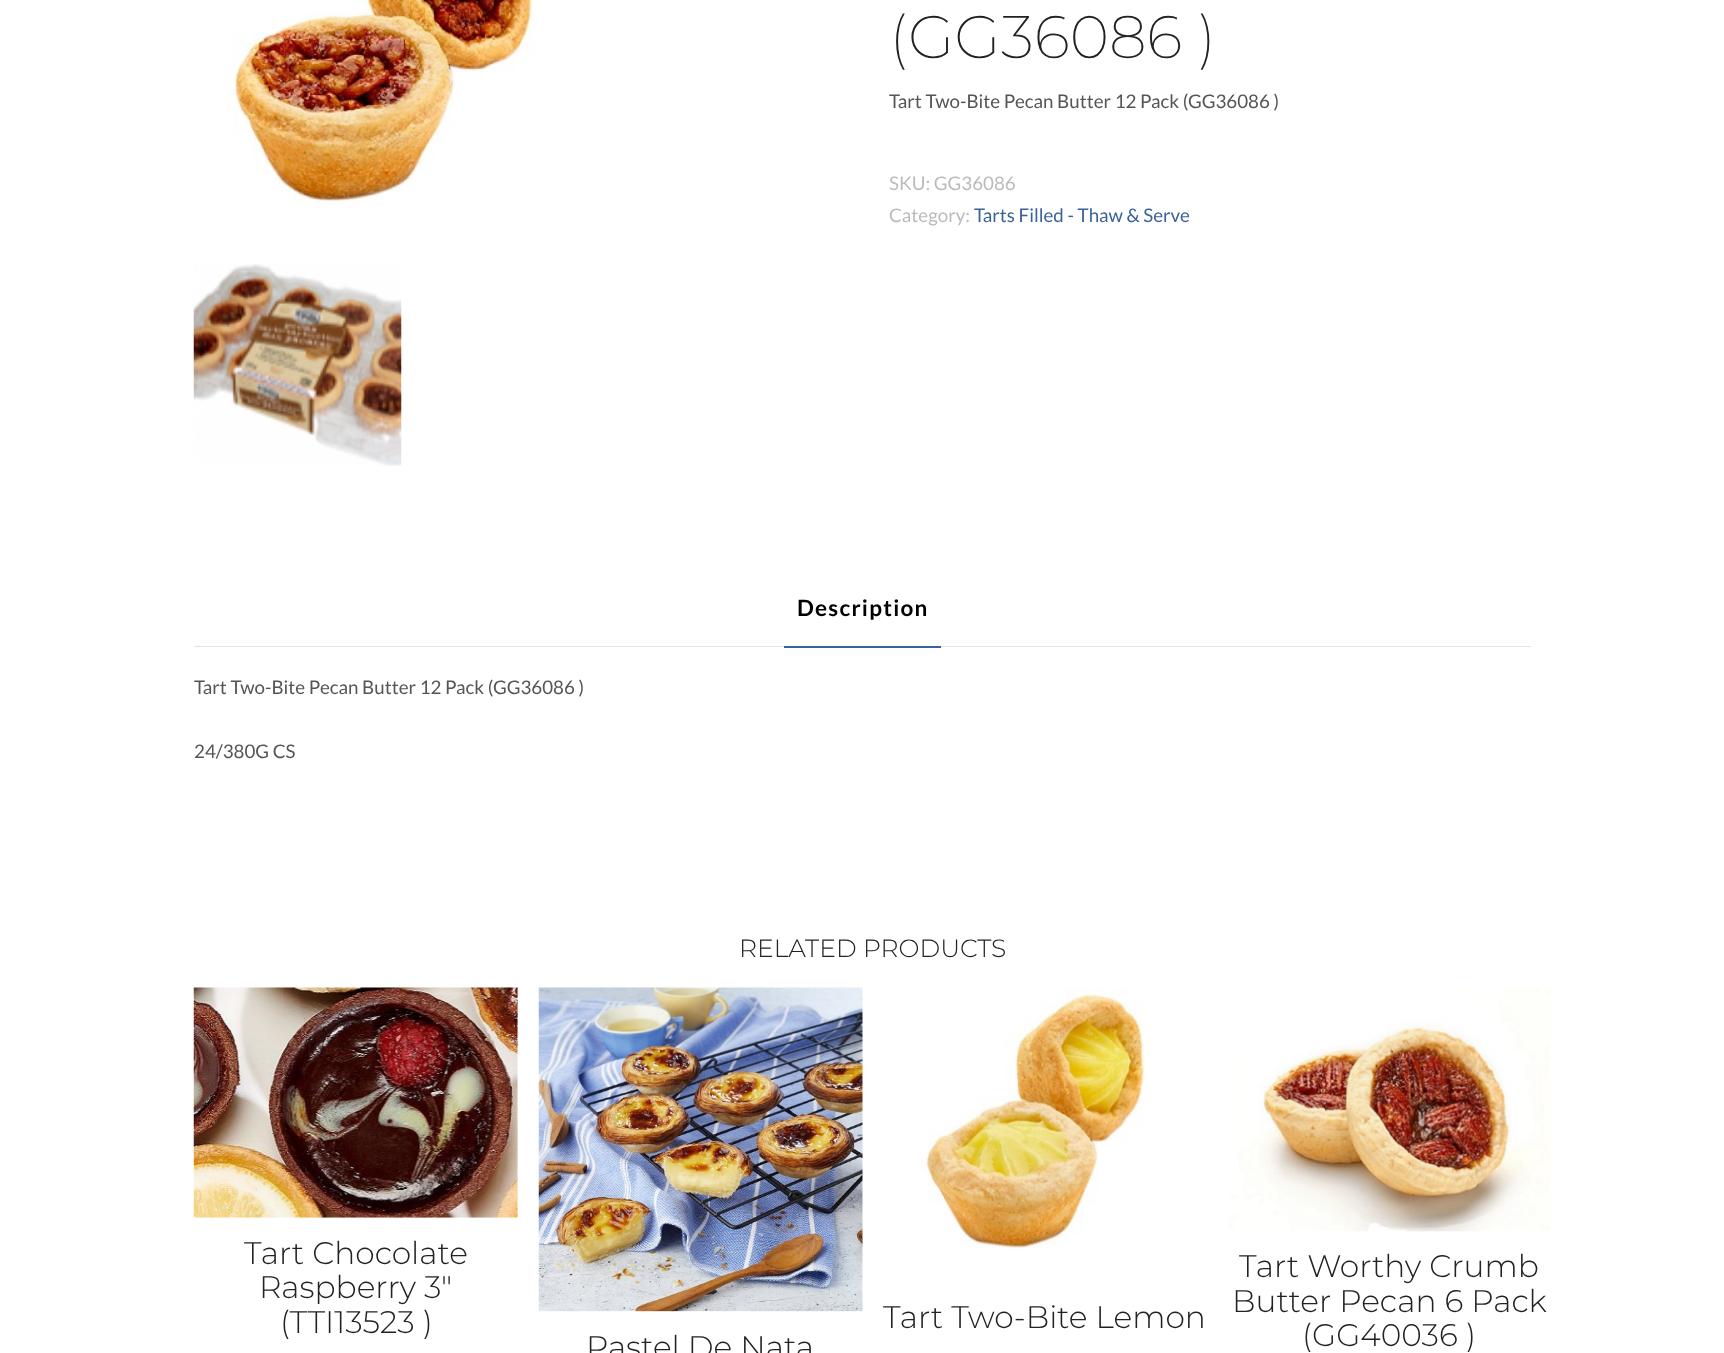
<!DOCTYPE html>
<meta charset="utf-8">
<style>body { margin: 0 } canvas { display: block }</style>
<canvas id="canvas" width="1724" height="1353"></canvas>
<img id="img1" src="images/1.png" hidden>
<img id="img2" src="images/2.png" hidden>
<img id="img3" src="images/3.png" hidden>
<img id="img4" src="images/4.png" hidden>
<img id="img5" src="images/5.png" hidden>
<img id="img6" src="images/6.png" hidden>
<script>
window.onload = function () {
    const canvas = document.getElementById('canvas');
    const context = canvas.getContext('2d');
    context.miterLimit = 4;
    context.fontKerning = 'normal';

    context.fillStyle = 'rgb(255, 255, 255)';
    context.fillRect(0, 0, 1724, 1353);
    context.drawImage(document.getElementById('img1'), 233, 0, 301, 203);
    context.drawImage(document.getElementById('img2'), 193, 264, 209, 202);
    context.fillStyle = 'rgb(227, 227, 227)';
    context.fillRect(194, 646, 1337, 1);
    context.fillStyle = 'rgb(59, 98, 153)';
    context.fillRect(784, 646, 157, 2);
    context.drawImage(document.getElementById('img3'), 193, 987, 325, 231);
    context.drawImage(document.getElementById('img4'), 921, 987, 224, 262);
    context.drawImage(document.getElementById('img5'), 1228, 987, 323, 245);
    context.drawImage(document.getElementById('img6'), 538, 987, 325, 325);
    context.font = '200 60px Montserrat';
    context.fillStyle = 'rgb(34, 34, 34)';
    context.fillText('(GG36086 )', 889, 58);
    context.font = '18.75px Lato';
    context.fillStyle = 'rgb(85, 85, 85)';
    context.fillText('Tart Two-Bite Pecan Butter 12 Pack (GG36086 )', 889, 108);
    context.fillStyle = 'rgb(187, 187, 187)';
    context.fillText('SKU: GG36086', 889, 190);
    context.fillText('Category:', 889, 222);
    context.fillStyle = 'rgb(59, 98, 153)';
    context.fillText('Tarts Filled - Thaw & Serve', 974, 222);
    context.letterSpacing = '1.25px';
    context.font = 'bold 22.5px Lato';
    context.fillStyle = 'rgb(0, 0, 0)';
    context.fillText('Description', 797, 616);
    context.letterSpacing = '0px';
    context.font = '18.75px Lato';
    context.fillStyle = 'rgb(85, 85, 85)';
    context.fillText('Tart Two-Bite Pecan Butter 12 Pack (GG36086 )', 194, 694);
    context.fillText('24/380G CS', 194, 758);
    context.font = '300 25px Montserrat';
    context.fillStyle = 'rgb(34, 34, 34)';
    context.fillText('RELATED PRODUCTS', 739, 957);
    context.font = '300 31.25px Montserrat';
    context.fillText('Tart Chocolate', 244, 1264);
    context.fillText('Raspberry 3″', 259, 1298);
    context.fillText('(TTI13523 )', 280, 1333);
    context.fillText('Tart Two-Bite Lemon', 883, 1328);
    context.fillText('Tart Worthy Crumb', 1239, 1277);
    context.fillText('Butter Pecan 6 Pack', 1232, 1312);
    context.fillText('(GG40036 )', 1302, 1346);
    context.fillText('Pastel De Nata', 586, 1358);
};
</script>
